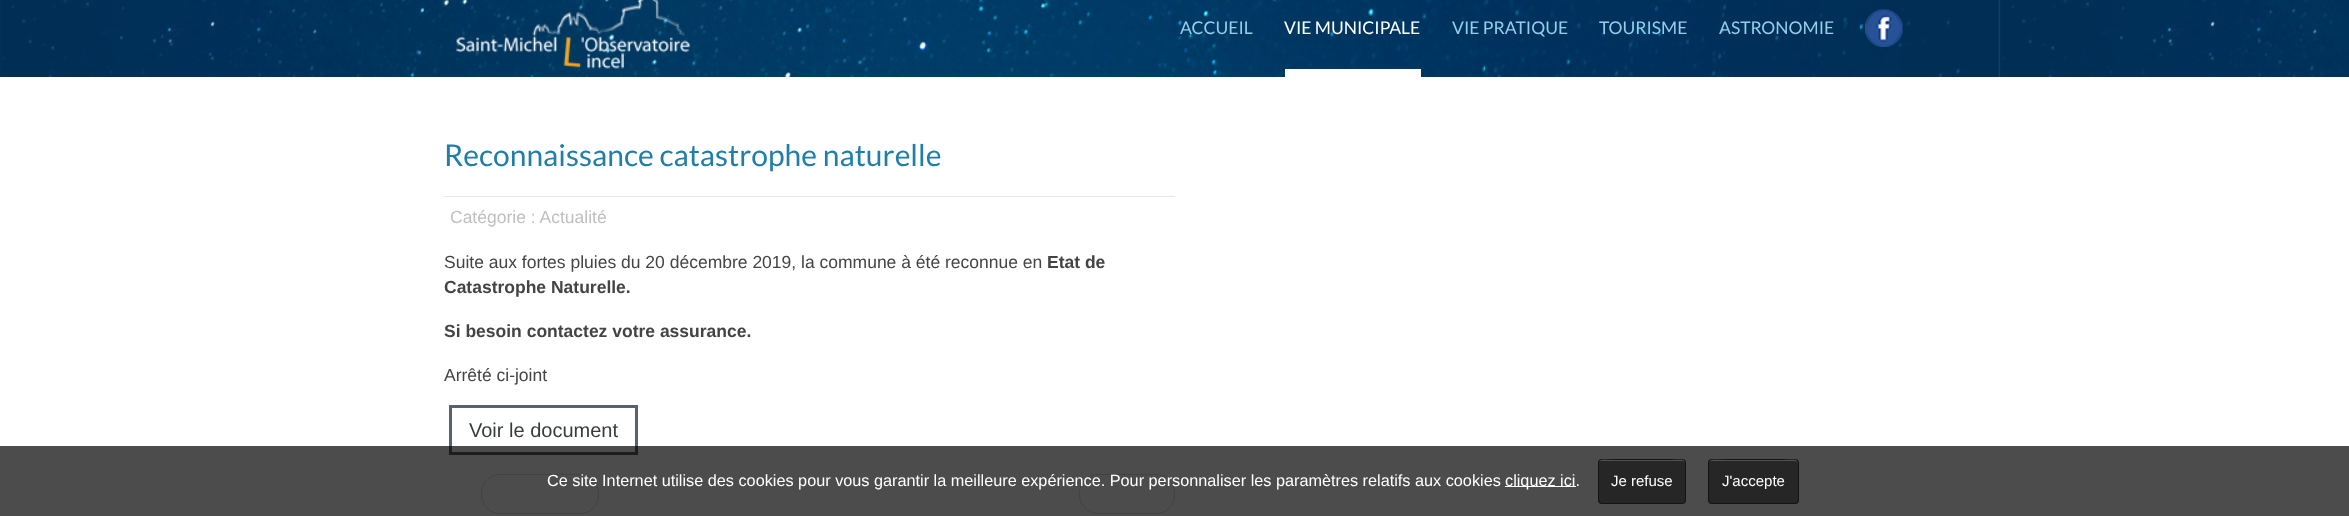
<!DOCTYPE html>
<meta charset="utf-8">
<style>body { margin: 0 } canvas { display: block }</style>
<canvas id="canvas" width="2349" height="516"></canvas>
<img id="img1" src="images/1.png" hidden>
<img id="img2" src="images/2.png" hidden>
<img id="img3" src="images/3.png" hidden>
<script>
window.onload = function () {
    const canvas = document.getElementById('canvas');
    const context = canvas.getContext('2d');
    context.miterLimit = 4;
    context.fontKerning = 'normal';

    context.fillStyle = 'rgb(255, 255, 255)';
    context.fillRect(0, 0, 2349, 516);
    context.drawImage(document.getElementById('img1'), 0, 0, 2349, 77);
    context.drawImage(document.getElementById('img2'), 456, 0, 235, 69);
    context.fillRect(1285, 69, 136, 8);
    context.drawImage(document.getElementById('img3'), 1865, 9, 38, 38);
    context.fillStyle = 'rgb(230, 230, 230)';
    context.fillRect(444, 196, 731, 1);
    context.strokeStyle = 'rgb(90, 99, 105)';
    context.lineWidth = 3;
    context.strokeRect(450.5, 406.5, 186, 47);
    context.beginPath();
    context.roundRect(481.5, 474.5, 117, 39, 18.5);
    context.strokeStyle = 'rgb(221, 221, 221)';
    context.lineWidth = 1;
    context.stroke();
    context.beginPath();
    context.roundRect(1079.5, 474.5, 95, 39, 18.5);
    context.stroke();
    context.fillStyle = 'rgba(0, 0, 0, 0.7)';
    context.fillRect(0, 446, 2349, 70);
    context.fillStyle = 'rgb(255, 255, 255)';
    context.fillRect(1505, 486, 71, 1);
    context.fillStyle = 'rgb(38, 38, 38)';
    context.beginPath();
    context.roundRect(1598, 459, 88, 45, 4);
    context.fill();
    context.fillStyle = 'rgb(81, 81, 81)';
    context.beginPath();
    context.moveTo(1601, 461);
    context.lineTo(1682, 461);
    context.bezierCurveTo(1684, 461, 1685, 462, 1685, 464);
    context.bezierCurveTo(1685, 456, 1675, 460, 1669, 460);
    context.lineTo(1615, 460);
    context.bezierCurveTo(1609, 460, 1599, 456, 1599, 464);
    context.bezierCurveTo(1599, 462, 1600, 461, 1601, 461);
    context.closePath();
    context.fill();
    context.beginPath();
    context.roundRect(1598.5, 459.5, 87, 44, 3.5);
    context.strokeStyle = 'rgba(0, 0, 0, 0.5)';
    context.stroke();
    context.fillStyle = 'rgb(38, 38, 38)';
    context.beginPath();
    context.roundRect(1708, 459, 91, 45, 4);
    context.fill();
    context.fillStyle = 'rgb(81, 81, 81)';
    context.beginPath();
    context.moveTo(1711, 461);
    context.lineTo(1795, 461);
    context.bezierCurveTo(1796, 461, 1798, 462, 1798, 464);
    context.bezierCurveTo(1798, 456, 1787, 460, 1782, 460);
    context.lineTo(1726, 460);
    context.bezierCurveTo(1720, 460, 1709, 456, 1709, 464);
    context.bezierCurveTo(1709, 462, 1710, 461, 1711, 461);
    context.closePath();
    context.fill();
    context.beginPath();
    context.roundRect(1708.5, 459.5, 90, 44, 3.5);
    context.stroke();
    context.font = '17.5px Lato';
    context.fillStyle = 'rgb(147, 206, 234)';
    context.fillText('ACCUEIL', 1180, 34);
    context.fillStyle = 'rgb(255, 255, 255)';
    context.fillText('VIE MUNICIPALE', 1284, 34);
    context.fillStyle = 'rgb(147, 206, 234)';
    context.fillText('VIE PRATIQUE', 1452, 34);
    context.fillText('TOURISME', 1599, 34);
    context.fillText('ASTRONOMIE', 1719, 34);
    context.font = '30px Lato';
    context.fillStyle = 'rgb(33, 126, 169)';
    context.fillText('Reconnaissance catastrophe naturelle', 444, 166);
    context.font = '17.5px Liberation Sans';
    context.fillStyle = 'rgb(191, 191, 191)';
    context.fillText('Catégorie : Actualité', 450, 223);
    context.fillStyle = 'rgb(68, 68, 68)';
    context.fillText('Suite aux fortes pluies du 20 décembre 2019, la commune à été reconnue en', 444, 268);
    context.font = 'bold 17.5px Liberation Sans';
    context.fillText('Etat de', 1047, 268);
    context.fillText('Catastrophe Naturelle.', 444, 293);
    context.fillText('Si besoin contactez votre assurance.', 444, 337);
    context.font = '17.5px Liberation Sans';
    context.fillText('Arrêté ci-joint', 444, 381);
    context.font = '20px Liberation Sans';
    context.fillStyle = 'rgb(55, 60, 64)';
    context.fillText('Voir le document', 469, 437);
    context.font = '16.25px Liberation Sans';
    context.fillStyle = 'rgb(255, 255, 255)';
    context.fillText('Ce site Internet utilise des cookies pour vous garantir la meilleure expérience. Pour personnaliser les paramètres relatifs aux cookies', 547, 486);
    context.fillText('cliquez ici.', 1505, 486);
    context.font = '15px Liberation Sans';
    context.fillText('Je refuse', 1611, 486);
    context.fillText('J\'accepte', 1722, 486);
};
</script>
